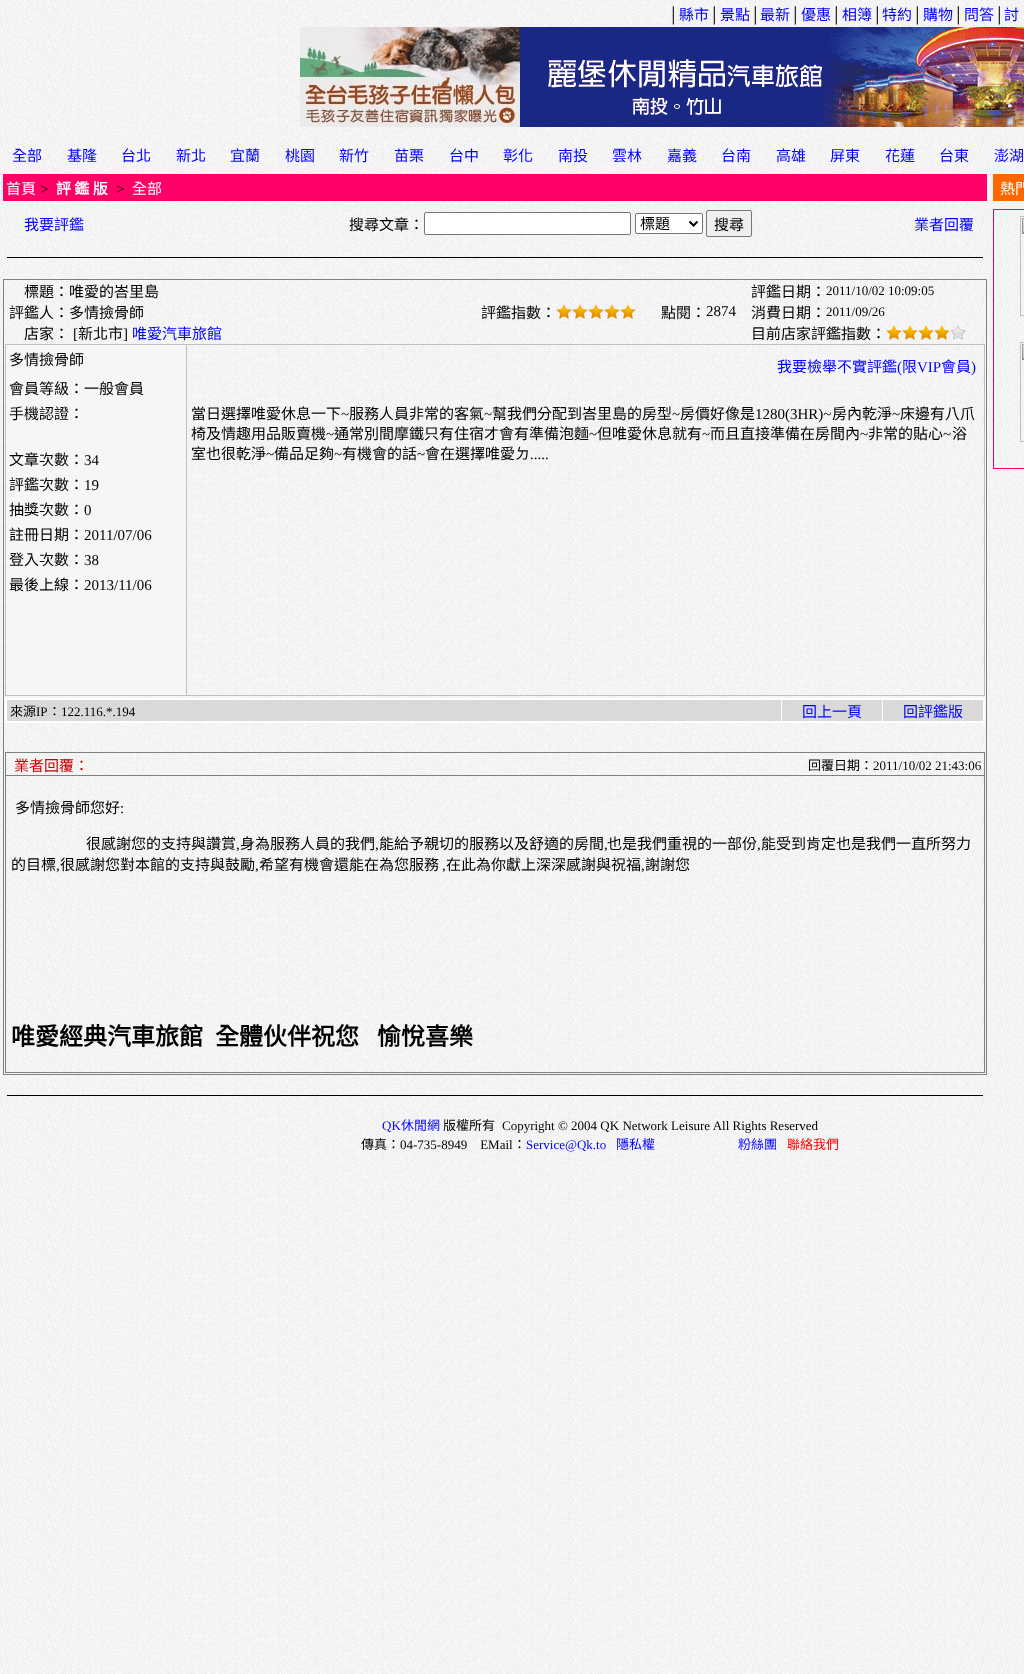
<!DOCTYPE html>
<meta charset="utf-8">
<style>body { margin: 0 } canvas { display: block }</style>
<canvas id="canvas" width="1024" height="1674"></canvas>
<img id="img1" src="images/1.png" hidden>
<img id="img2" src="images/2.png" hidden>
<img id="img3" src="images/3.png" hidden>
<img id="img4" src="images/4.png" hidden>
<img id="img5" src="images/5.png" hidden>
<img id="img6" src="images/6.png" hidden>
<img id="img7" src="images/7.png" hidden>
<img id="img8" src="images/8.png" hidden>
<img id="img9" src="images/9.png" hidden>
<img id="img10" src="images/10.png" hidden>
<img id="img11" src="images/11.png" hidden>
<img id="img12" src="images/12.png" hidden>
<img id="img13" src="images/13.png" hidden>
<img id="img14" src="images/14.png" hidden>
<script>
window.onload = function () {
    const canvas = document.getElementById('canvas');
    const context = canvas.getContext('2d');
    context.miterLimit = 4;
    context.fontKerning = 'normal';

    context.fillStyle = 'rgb(255, 255, 255)';
    context.fillRect(0, 0, 1024, 1674);
    context.drawImage(document.getElementById('img1'), 0, 0, 1024, 1674);
    context.drawImage(document.getElementById('img2'), 300, 27, 220, 100);
    context.drawImage(document.getElementById('img3'), 520, 27, 504, 100);
    context.fillStyle = 'rgb(255, 0, 102)';
    context.fillRect(3, 174, 984, 27);
    context.fillStyle = 'rgb(255, 255, 255)';
    context.beginPath();
    context.roundRect(424.5, 212.5, 206, 22, 1.5);
    context.fill();
    context.strokeStyle = 'rgb(118, 118, 118)';
    context.stroke();
    context.beginPath();
    context.roundRect(635.5, 213.5, 67, 20, 1.5);
    context.fill();
    context.stroke();
    context.beginPath();
    context.moveTo(689.5, 221.5);
    context.lineTo(693.5, 225.5);
    context.lineTo(697.5, 221.5);
    context.strokeStyle = 'rgb(0, 0, 0)';
    context.lineWidth = 2;
    context.stroke();
    context.fillStyle = 'rgb(239, 239, 239)';
    context.beginPath();
    context.roundRect(706.5, 210.5, 45, 26, 1.5);
    context.fill();
    context.strokeStyle = 'rgb(118, 118, 118)';
    context.lineWidth = 1;
    context.stroke();
    context.fillStyle = 'rgb(0, 0, 0)';
    context.fillRect(7, 257, 976, 1);
    context.fillStyle = 'rgb(128, 128, 128)';
    context.fillRect(3, 279, 984, 1);
    context.fillRect(986, 279, 1, 796);
    context.fillRect(3, 1074, 984, 1);
    context.fillRect(3, 279, 1, 796);
    context.drawImage(document.getElementById('img4'), 556, 304, 16, 15);
    context.drawImage(document.getElementById('img5'), 572, 304, 16, 15);
    context.drawImage(document.getElementById('img6'), 588, 304, 16, 15);
    context.drawImage(document.getElementById('img7'), 604, 304, 16, 15);
    context.drawImage(document.getElementById('img8'), 620, 304, 16, 15);
    context.drawImage(document.getElementById('img9'), 886, 325, 16, 15);
    context.drawImage(document.getElementById('img10'), 902, 325, 16, 15);
    context.drawImage(document.getElementById('img11'), 918, 325, 16, 15);
    context.drawImage(document.getElementById('img12'), 934, 325, 16, 15);
    context.drawImage(document.getElementById('img13'), 950, 325, 16, 15);
    context.fillStyle = 'rgb(192, 192, 192)';
    context.fillRect(5, 344, 980, 1);
    context.fillRect(984, 344, 1, 352);
    context.fillRect(5, 695, 980, 1);
    context.fillRect(5, 344, 1, 352);
    context.fillStyle = 'rgb(246, 246, 246)';
    context.fillRect(6, 345, 180, 350);
    context.fillStyle = 'rgb(192, 192, 192)';
    context.fillRect(186, 344, 1, 352);
    context.fillStyle = 'rgb(217, 217, 217)';
    context.fillRect(7, 700, 976, 21);
    context.fillStyle = 'rgb(255, 255, 255)';
    context.fillRect(781, 699, 1, 24);
    context.fillRect(882, 699, 1, 24);
    context.fillRect(5, 698, 980, 2);
    context.fillRect(983, 698, 2, 25);
    context.fillRect(5, 721, 980, 2);
    context.fillRect(5, 698, 2, 25);
    context.fillStyle = 'rgb(128, 128, 128)';
    context.fillRect(5, 752, 980, 1);
    context.fillRect(984, 752, 1, 321);
    context.fillRect(5, 1072, 980, 1);
    context.fillRect(5, 752, 1, 321);
    context.fillRect(5, 775, 980, 1);
    context.fillStyle = 'rgb(0, 0, 0)';
    context.fillRect(7, 1095, 976, 1);
    context.fillStyle = 'rgb(255, 102, 0)';
    context.fillRect(993, 174, 31, 27);
    context.fillStyle = 'rgb(255, 0, 102)';
    context.fillRect(993, 209, 31, 1);
    context.fillRect(993, 468, 31, 1);
    context.fillRect(993, 209, 1, 260);
    context.drawImage(document.getElementById('img14'), 1020, 216, 4, 226);
    context.font = '15px Liberation Serif';
    context.fillStyle = 'rgb(0, 0, 0)';
    context.fillText('│', 668, 20);
    context.font = '15px Noto Sans CJK TC';
    context.fillStyle = 'rgb(0, 0, 255)';
    context.fillText('縣市', 679, 20);
    context.font = '15px Liberation Serif';
    context.fillStyle = 'rgb(0, 0, 0)';
    context.fillText('│', 709, 20);
    context.font = '15px Noto Sans CJK TC';
    context.fillStyle = 'rgb(0, 0, 255)';
    context.fillText('景點', 720, 20);
    context.font = '15px Liberation Serif';
    context.fillStyle = 'rgb(0, 0, 0)';
    context.fillText('│', 750, 20);
    context.font = '15px Noto Sans CJK TC';
    context.fillStyle = 'rgb(0, 0, 255)';
    context.fillText('最新', 760, 20);
    context.font = '15px Liberation Serif';
    context.fillStyle = 'rgb(0, 0, 0)';
    context.fillText('│', 790, 20);
    context.font = '15px Noto Sans CJK TC';
    context.fillStyle = 'rgb(0, 0, 255)';
    context.fillText('優惠', 801, 20);
    context.font = '15px Liberation Serif';
    context.fillStyle = 'rgb(0, 0, 0)';
    context.fillText('│', 831, 20);
    context.font = '15px Noto Sans CJK TC';
    context.fillStyle = 'rgb(0, 0, 255)';
    context.fillText('相簿', 842, 20);
    context.font = '15px Liberation Serif';
    context.fillStyle = 'rgb(0, 0, 0)';
    context.fillText('│', 872, 20);
    context.font = '15px Noto Sans CJK TC';
    context.fillStyle = 'rgb(0, 0, 255)';
    context.fillText('特約', 882, 20);
    context.font = '15px Liberation Serif';
    context.fillStyle = 'rgb(0, 0, 0)';
    context.fillText('│', 912, 20);
    context.font = '15px Noto Sans CJK TC';
    context.fillStyle = 'rgb(0, 0, 255)';
    context.fillText('購物', 923, 20);
    context.font = '15px Liberation Serif';
    context.fillStyle = 'rgb(0, 0, 0)';
    context.fillText('│', 953, 20);
    context.font = '15px Noto Sans CJK TC';
    context.fillStyle = 'rgb(0, 0, 255)';
    context.fillText('問答', 964, 20);
    context.font = '15px Liberation Serif';
    context.fillStyle = 'rgb(0, 0, 0)';
    context.fillText('│', 994, 20);
    context.font = '15px Noto Sans CJK TC';
    context.fillStyle = 'rgb(0, 0, 255)';
    context.fillText('討', 1004, 20);
    context.fillText('全部', 12, 161);
    context.fillText('基隆', 67, 161);
    context.fillText('台北', 121, 161);
    context.fillText('新北', 176, 161);
    context.fillText('宜蘭', 230, 161);
    context.fillText('桃園', 285, 161);
    context.fillText('新竹', 339, 161);
    context.fillText('苗栗', 394, 161);
    context.fillText('台中', 449, 161);
    context.fillText('彰化', 503, 161);
    context.fillText('南投', 558, 161);
    context.fillText('雲林', 612, 161);
    context.fillText('嘉義', 667, 161);
    context.fillText('台南', 721, 161);
    context.fillText('高雄', 776, 161);
    context.fillText('屏東', 830, 161);
    context.fillText('花蓮', 885, 161);
    context.fillText('台東', 939, 161);
    context.fillText('澎湖', 994, 161);
    context.fillStyle = 'rgb(255, 255, 255)';
    context.fillText('首頁', 6, 194);
    context.font = '15px Liberation Serif';
    context.fillStyle = 'rgb(0, 0, 0)';
    context.fillText('>', 40, 194);
    context.font = 'bold 15px Noto Sans CJK TC';
    context.fillStyle = 'rgb(255, 255, 255)';
    context.fillText('評 鑑 版', 56, 194);
    context.font = '15px Liberation Serif';
    context.fillStyle = 'rgb(0, 0, 0)';
    context.fillText('>', 116, 194);
    context.font = '15px Noto Sans CJK TC';
    context.fillStyle = 'rgb(255, 255, 255)';
    context.fillText('全部', 132, 194);
    context.fillStyle = 'rgb(0, 0, 255)';
    context.fillText('我要評鑑', 24, 230);
    context.fillStyle = 'rgb(0, 0, 0)';
    context.fillText('搜尋文章：', 349, 230);
    context.fillText('標題', 640, 229);
    context.fillText('搜尋', 714, 230);
    context.fillStyle = 'rgb(0, 0, 255)';
    context.fillText('業者回覆', 914, 230);
    context.fillStyle = 'rgb(0, 0, 0)';
    context.fillText('標題：唯愛的峇里島', 24, 297);
    context.fillText('評鑑日期：', 751, 297);
    context.font = '13px Liberation Serif';
    context.fillText('2011/10/02 10:09:05', 826, 295);
    context.font = '15px Noto Sans CJK TC';
    context.fillText('評鑑人：多情撿骨師', 9, 318);
    context.fillText('評鑑指數：', 481, 318);
    context.fillText('點閱：', 661, 318);
    context.font = '15px Liberation Serif';
    context.fillText('2874', 706, 316);
    context.font = '15px Noto Sans CJK TC';
    context.fillText('消費日期：', 751, 318);
    context.font = '13px Liberation Serif';
    context.fillText('2011/09/26', 826, 316);
    context.font = '15px Noto Sans CJK TC';
    context.fillText('店家：', 24, 339);
    context.font = '15px Liberation Serif';
    context.fillText('[', 73, 339);
    context.font = '15px Noto Sans CJK TC';
    context.fillText('新北市', 78, 339);
    context.font = '15px Liberation Serif';
    context.fillText(']', 123, 339);
    context.font = '15px Noto Sans CJK TC';
    context.fillStyle = 'rgb(0, 0, 255)';
    context.fillText('唯愛汽車旅館', 132, 339);
    context.fillStyle = 'rgb(0, 0, 0)';
    context.fillText('目前店家評鑑指數：', 751, 339);
    context.fillText('多情撿骨師', 9, 365);
    context.fillText('會員等級：一般會員', 9, 394);
    context.fillText('手機認證：', 9, 419);
    context.fillText('文章次數：', 9, 465);
    context.font = '15px Liberation Serif';
    context.fillText('34', 84, 465);
    context.font = '15px Noto Sans CJK TC';
    context.fillText('評鑑次數：', 9, 490);
    context.font = '15px Liberation Serif';
    context.fillText('19', 84, 490);
    context.font = '15px Noto Sans CJK TC';
    context.fillText('抽獎次數：', 9, 515);
    context.font = '15px Liberation Serif';
    context.fillText('0', 84, 515);
    context.font = '15px Noto Sans CJK TC';
    context.fillText('註冊日期：', 9, 540);
    context.font = '15px Liberation Serif';
    context.fillText('2011/07/06', 84, 540);
    context.font = '15px Noto Sans CJK TC';
    context.fillText('登入次數：', 9, 565);
    context.font = '15px Liberation Serif';
    context.fillText('38', 84, 565);
    context.font = '15px Noto Sans CJK TC';
    context.fillText('最後上線：', 9, 590);
    context.font = '15px Liberation Serif';
    context.fillText('2013/11/06', 84, 590);
    context.font = '15px Noto Sans CJK TC';
    context.fillStyle = 'rgb(0, 0, 255)';
    context.fillText('我要檢舉不實評鑑', 777, 372);
    context.font = '15px Liberation Serif';
    context.fillText('(', 897, 372);
    context.font = '15px Noto Sans CJK TC';
    context.fillText('限', 902, 372);
    context.font = '15px Liberation Serif';
    context.fillText('VIP', 917, 372);
    context.font = '15px Noto Sans CJK TC';
    context.fillText('會員', 941, 372);
    context.font = '15px Liberation Serif';
    context.fillText(')', 971, 372);
    context.font = '15px Noto Sans CJK TC';
    context.fillStyle = 'rgb(0, 0, 0)';
    context.fillText('當日選擇唯愛休息一下', 191, 419);
    context.font = '15px Liberation Serif';
    context.fillText('~', 341, 419);
    context.font = '15px Noto Sans CJK TC';
    context.fillText('服務人員非常的客氣', 349, 419);
    context.font = '15px Liberation Serif';
    context.fillText('~', 484, 419);
    context.font = '15px Noto Sans CJK TC';
    context.fillText('幫我們分配到峇里島的房型', 492, 419);
    context.font = '15px Liberation Serif';
    context.fillText('~', 672, 419);
    context.font = '15px Noto Sans CJK TC';
    context.fillText('房價好像是', 680, 419);
    context.font = '15px Liberation Serif';
    context.fillText('1280(3HR)~', 755, 419);
    context.font = '15px Noto Sans CJK TC';
    context.fillText('房內乾淨', 832, 419);
    context.font = '15px Liberation Serif';
    context.fillText('~', 892, 419);
    context.font = '15px Noto Sans CJK TC';
    context.fillText('床邊有八爪', 900, 419);
    context.fillText('椅及情趣用品販賣機', 191, 439);
    context.font = '15px Liberation Serif';
    context.fillText('~', 326, 439);
    context.font = '15px Noto Sans CJK TC';
    context.fillText('通常別間摩鐵只有住宿才會有準備泡麵', 334, 439);
    context.font = '15px Liberation Serif';
    context.fillText('~', 589, 439);
    context.font = '15px Noto Sans CJK TC';
    context.fillText('但唯愛休息就有', 597, 439);
    context.font = '15px Liberation Serif';
    context.fillText('~', 702, 439);
    context.font = '15px Noto Sans CJK TC';
    context.fillText('而且直接準備在房間內', 710, 439);
    context.font = '15px Liberation Serif';
    context.fillText('~', 860, 439);
    context.font = '15px Noto Sans CJK TC';
    context.fillText('非常的貼心', 868, 439);
    context.font = '15px Liberation Serif';
    context.fillText('~', 943, 439);
    context.font = '15px Noto Sans CJK TC';
    context.fillText('浴', 952, 439);
    context.fillText('室也很乾淨', 191, 459);
    context.font = '15px Liberation Serif';
    context.fillText('~', 266, 459);
    context.font = '15px Noto Sans CJK TC';
    context.fillText('備品足夠', 274, 459);
    context.font = '15px Liberation Serif';
    context.fillText('~', 334, 459);
    context.font = '15px Noto Sans CJK TC';
    context.fillText('有機會的話', 342, 459);
    context.font = '15px Liberation Serif';
    context.fillText('~', 417, 459);
    context.font = '15px Noto Sans CJK TC';
    context.fillText('會在選擇唯愛ㄉ', 425, 459);
    context.font = '15px Liberation Serif';
    context.fillText('.....', 530, 459);
    context.font = '13px Noto Sans CJK TC';
    context.fillText('來源', 10, 716);
    context.font = '13px Liberation Serif';
    context.fillText('IP', 36, 716);
    context.font = '13px Noto Sans CJK TC';
    context.fillText('：', 48, 716);
    context.font = '13px Liberation Serif';
    context.fillText('122.116.*.194', 61, 716);
    context.font = '15px Noto Sans CJK TC';
    context.fillStyle = 'rgb(0, 0, 255)';
    context.fillText('回上一頁', 802, 717);
    context.fillText('回評鑑版', 903, 717);
    context.fillStyle = 'rgb(204, 0, 0)';
    context.fillText('業者回覆：', 14, 771);
    context.font = '13px Noto Sans CJK TC';
    context.fillStyle = 'rgb(0, 0, 0)';
    context.fillText('回覆日期：', 808, 770);
    context.font = '13px Liberation Serif';
    context.fillText('2011/10/02 21:43:06', 873, 770);
    context.font = '15px Noto Sans CJK TC';
    context.fillText('多情撿骨師您好', 15, 813);
    context.font = '15px Liberation Serif';
    context.fillText(':', 120, 813);
    context.font = '15px Noto Sans CJK TC';
    context.fillText('很感謝您的支持與讚賞', 86, 849);
    context.font = '15px Liberation Serif';
    context.fillText(',', 236, 849);
    context.font = '15px Noto Sans CJK TC';
    context.fillText('身為服務人員的我們', 240, 849);
    context.font = '15px Liberation Serif';
    context.fillText(',', 375, 849);
    context.font = '15px Noto Sans CJK TC';
    context.fillText('能給予親切的服務以及舒適的房間', 379, 849);
    context.font = '15px Liberation Serif';
    context.fillText(',', 604, 849);
    context.font = '15px Noto Sans CJK TC';
    context.fillText('也是我們重視的一部份', 607, 849);
    context.font = '15px Liberation Serif';
    context.fillText(',', 757, 849);
    context.font = '15px Noto Sans CJK TC';
    context.fillText('能受到肯定也是我們一直所努力', 761, 849);
    context.fillText('的目標', 11, 870);
    context.font = '15px Liberation Serif';
    context.fillText(',', 56, 870);
    context.font = '15px Noto Sans CJK TC';
    context.fillText('很感謝您對本館的支持與鼓勵', 60, 870);
    context.font = '15px Liberation Serif';
    context.fillText(',', 255, 870);
    context.font = '15px Noto Sans CJK TC';
    context.fillText('希望有機會還能在為您服務', 259, 870);
    context.font = '15px Liberation Serif';
    context.fillText(',', 442, 870);
    context.font = '15px Noto Sans CJK TC';
    context.fillText('在此為你獻上深深感謝與祝福', 446, 870);
    context.font = '15px Liberation Serif';
    context.fillText(',', 641, 870);
    context.font = '15px Noto Sans CJK TC';
    context.fillText('謝謝您', 645, 870);
    context.font = 'bold 24px Noto Sans CJK TC';
    context.fillText('唯愛經典汽車旅館', 11, 1045);
    context.fillText('全體伙伴祝您', 215, 1045);
    context.fillText('愉悅喜樂', 377, 1045);
    context.font = '15px Noto Sans CJK TC';
    context.fillStyle = 'rgb(255, 255, 255)';
    context.fillText('熱門', 1000, 194);
    context.font = '13px Liberation Serif';
    context.fillStyle = 'rgb(0, 0, 255)';
    context.fillText('QK', 382, 1130);
    context.font = '13px Noto Sans CJK TC';
    context.fillText('休閒網', 401, 1130);
    context.fillStyle = 'rgb(0, 0, 0)';
    context.fillText('版權所有', 443, 1130);
    context.font = '13px Liberation Serif';
    context.fillText('Copyright © 2004 QK Network Leisure All Rights Reserved', 502, 1130);
    context.font = '13px Noto Sans CJK TC';
    context.fillText('傳真：', 361, 1149);
    context.font = '13px Liberation Serif';
    context.fillText('04-735-8949    EMail', 400, 1149);
    context.font = '13px Noto Sans CJK TC';
    context.fillText('：', 513, 1149);
    context.font = '13px Liberation Serif';
    context.fillStyle = 'rgb(0, 0, 255)';
    context.fillText('Service@Qk.to', 526, 1149);
    context.font = '13px Noto Sans CJK TC';
    context.fillText('隱私權', 616, 1149);
    context.fillText('粉絲團', 738, 1149);
    context.fillStyle = 'rgb(255, 0, 0)';
    context.fillText('聯絡我們', 787, 1149);
};
</script>
